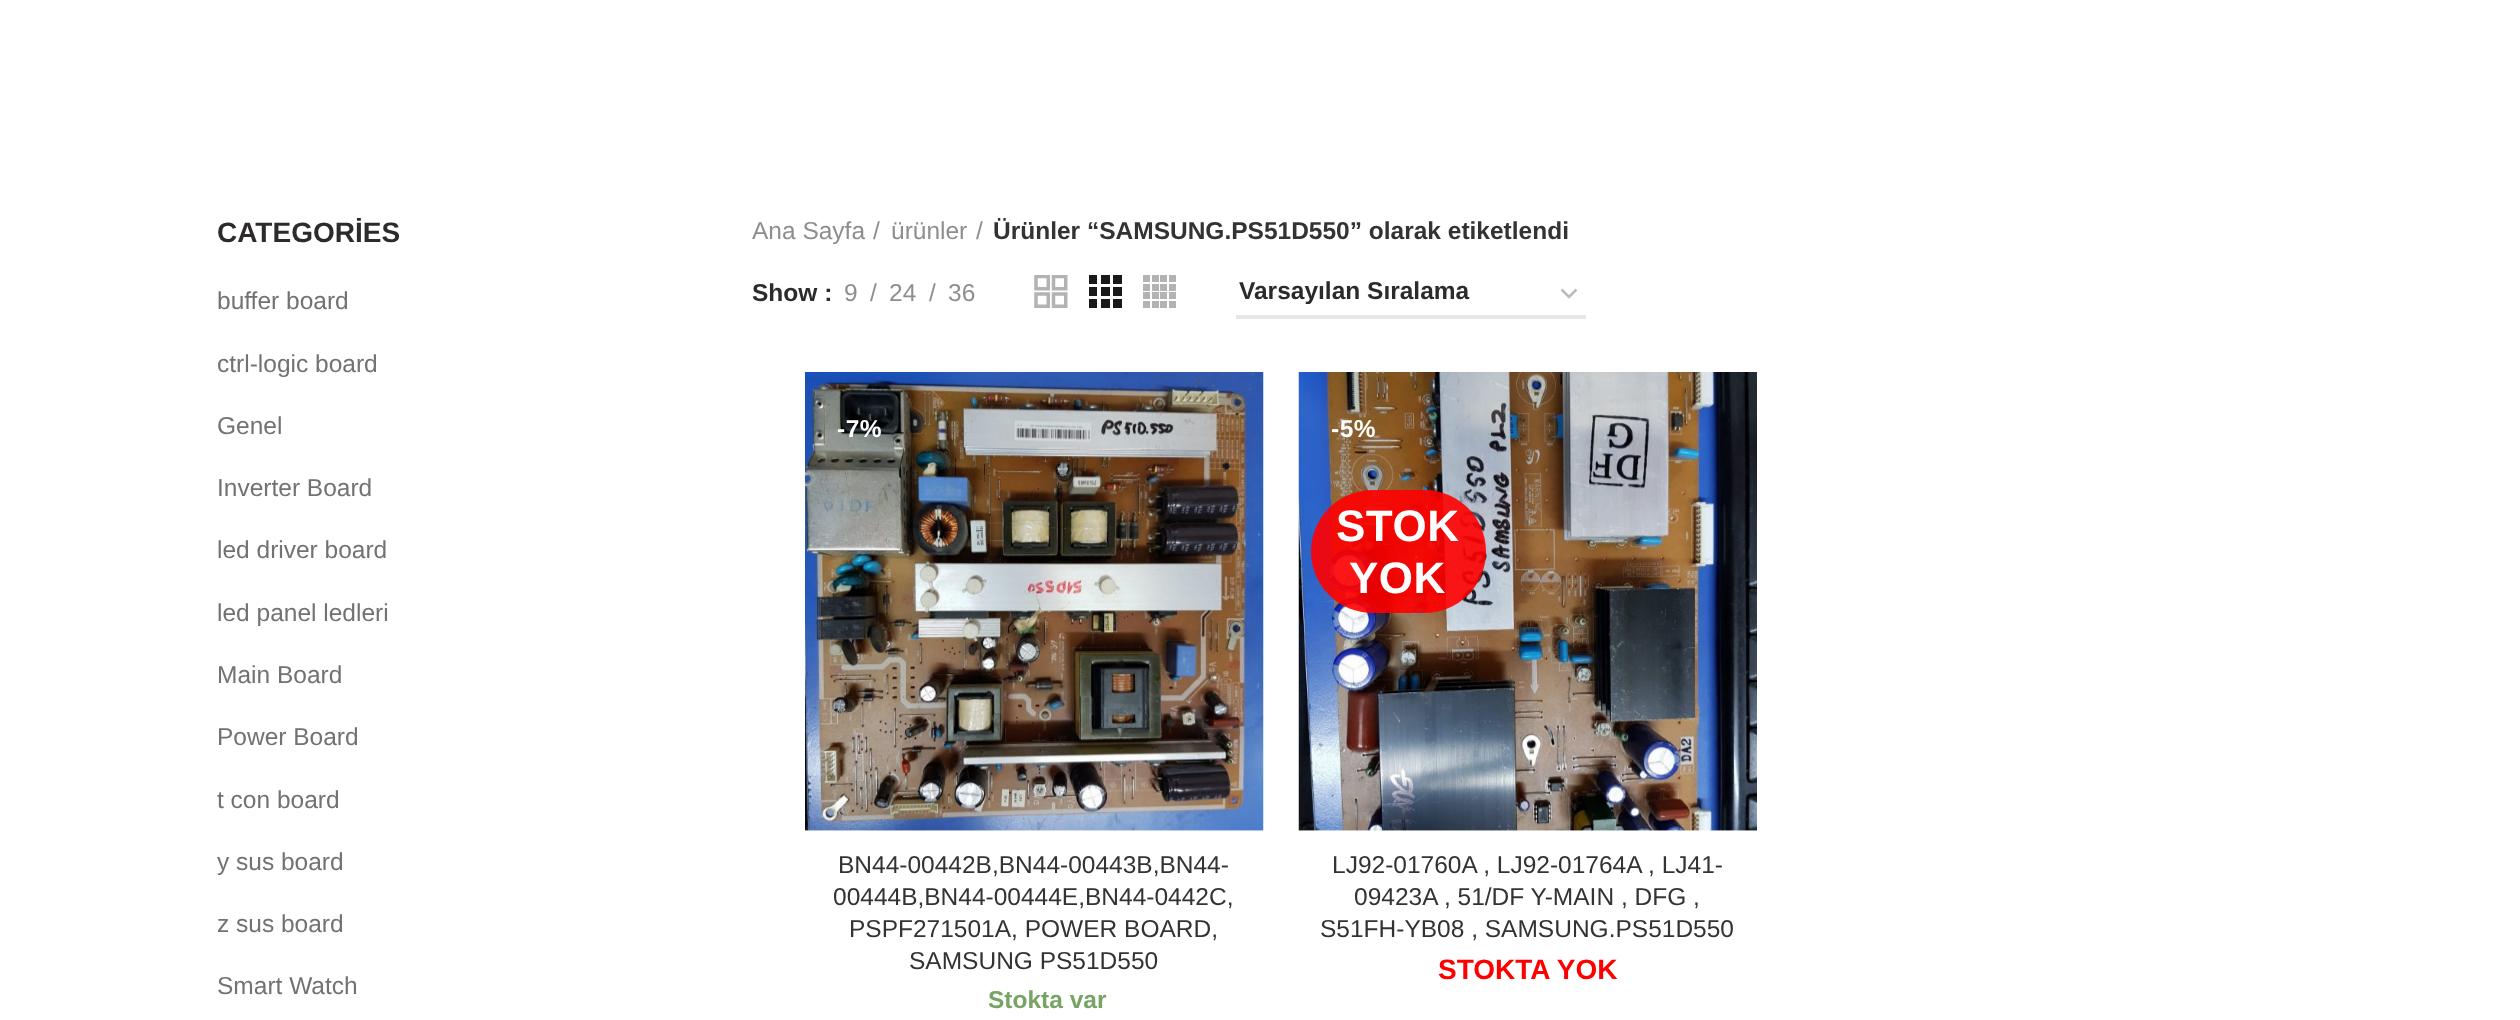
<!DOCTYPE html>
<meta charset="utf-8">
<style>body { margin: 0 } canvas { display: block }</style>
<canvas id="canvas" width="2520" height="1020"></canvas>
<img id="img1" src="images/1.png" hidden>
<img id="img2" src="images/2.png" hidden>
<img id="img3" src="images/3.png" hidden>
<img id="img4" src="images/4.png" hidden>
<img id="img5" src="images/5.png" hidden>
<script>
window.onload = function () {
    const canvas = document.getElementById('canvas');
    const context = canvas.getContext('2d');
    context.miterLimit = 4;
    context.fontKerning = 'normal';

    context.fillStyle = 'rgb(255, 255, 255)';
    context.fillRect(0, 0, 2520, 1020);
    context.drawImage(document.getElementById('img1'), 1034, 275, 34, 33);
    context.drawImage(document.getElementById('img2'), 1089, 275, 33, 33);
    context.drawImage(document.getElementById('img3'), 1143, 275, 33, 33);
    context.beginPath();
    context.moveTo(1561.5, 289.5);
    context.lineTo(1569, 297);
    context.lineTo(1576.5, 289.5);
    context.strokeStyle = 'rgb(187, 187, 187)';
    context.lineWidth = 2.5;
    context.stroke();
    context.fillStyle = 'rgb(230, 230, 230)';
    context.fillRect(1236, 315, 350, 4);
    context.drawImage(document.getElementById('img4'), 805, 372, 459, 459);
    context.drawImage(document.getElementById('img5'), 1298, 372, 459, 459);
    context.fillStyle = 'rgba(255, 0, 0, 0.9)';
    context.beginPath();
    context.roundRect(1311, 490, 175, 123, 61.5);
    context.fill();
    context.font = 'bold 28px Liberation Sans';
    context.fillStyle = 'rgb(45, 42, 42)';
    context.fillText('CATEGORİES', 217, 242);
    context.font = '24.5px Liberation Sans';
    context.fillStyle = 'rgb(114, 114, 114)';
    context.fillText('buffer board', 217, 309);
    context.fillText('ctrl-logic board', 217, 372);
    context.fillText('Genel', 217, 434);
    context.fillText('Inverter Board', 217, 496);
    context.fillText('led driver board', 217, 558);
    context.fillText('led panel ledleri', 217, 621);
    context.fillText('Main Board', 217, 683);
    context.fillText('Power Board', 217, 745);
    context.fillText('t con board', 217, 808);
    context.fillText('y sus board', 217, 870);
    context.fillText('z sus board', 217, 932);
    context.fillText('Smart Watch', 217, 994);
    context.fillStyle = 'rgb(142, 142, 142)';
    context.fillText('Ana Sayfa', 752, 239);
    context.fillText('/', 873, 239);
    context.fillText('ürünler', 891, 239);
    context.fillText('/', 976, 239);
    context.font = 'bold 24.5px Liberation Sans';
    context.fillStyle = 'rgb(51, 51, 51)';
    context.fillText('Ürünler “SAMSUNG.PS51D550” olarak etiketlendi', 993, 239);
    context.fillStyle = 'rgb(45, 42, 42)';
    context.fillText('Show :', 752, 301);
    context.font = '24.5px Liberation Sans';
    context.fillStyle = 'rgb(142, 142, 142)';
    context.fillText('9', 844, 301);
    context.fillText('/', 870, 301);
    context.fillText('24', 889, 301);
    context.fillText('/', 929, 301);
    context.fillText('36', 948, 301);
    context.font = 'bold 24.5px Liberation Sans';
    context.fillStyle = 'rgb(45, 42, 42)';
    context.fillText('Varsayılan Sıralama', 1239, 299);
    context.letterSpacing = '0.5px';
    context.fillStyle = 'rgb(255, 255, 255)';
    context.fillText('-7%', 837, 437);
    context.letterSpacing = '0px';
    context.font = '24.5px Liberation Sans';
    context.fillStyle = 'rgb(51, 51, 51)';
    context.fillText('BN44-00442B,BN44-00443B,BN44-', 838, 873);
    context.fillText('00444B,BN44-00444E,BN44-0442C,', 833, 905);
    context.fillText('PSPF271501A, POWER BOARD,', 849, 937);
    context.fillText('SAMSUNG PS51D550', 909, 969);
    context.font = 'bold 24.5px Liberation Sans';
    context.fillStyle = 'rgb(119, 164, 100)';
    context.fillText('Stokta var', 988, 1008);
    context.letterSpacing = '0.5px';
    context.fillStyle = 'rgb(255, 255, 255)';
    context.fillText('-5%', 1331, 437);
    context.font = 'bold 44px Liberation Sans';
    context.fillText('STOK', 1336, 541);
    context.fillText('YOK', 1349, 593);
    context.letterSpacing = '0px';
    context.font = '24.5px Liberation Sans';
    context.fillStyle = 'rgb(51, 51, 51)';
    context.fillText('LJ92-01760A , LJ92-01764A , LJ41-', 1332, 873);
    context.fillText('09423A , 51/DF Y-MAIN , DFG ,', 1354, 905);
    context.fillText('S51FH-YB08 , SAMSUNG.PS51D550', 1320, 937);
    context.font = 'bold 28px Liberation Sans';
    context.fillStyle = 'rgb(255, 0, 0)';
    context.fillText('STOKTA YOK', 1438, 979);
};
</script>
